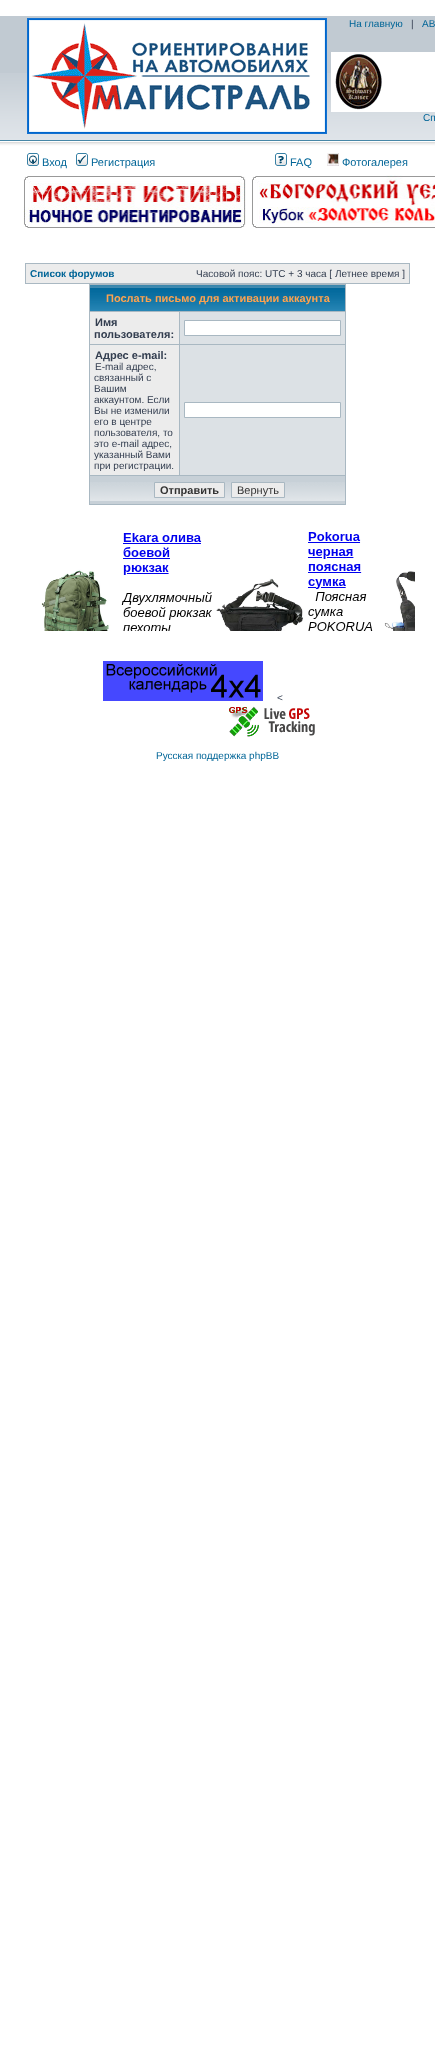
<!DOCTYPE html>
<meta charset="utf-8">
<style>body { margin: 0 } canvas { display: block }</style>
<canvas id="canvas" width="435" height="2065"></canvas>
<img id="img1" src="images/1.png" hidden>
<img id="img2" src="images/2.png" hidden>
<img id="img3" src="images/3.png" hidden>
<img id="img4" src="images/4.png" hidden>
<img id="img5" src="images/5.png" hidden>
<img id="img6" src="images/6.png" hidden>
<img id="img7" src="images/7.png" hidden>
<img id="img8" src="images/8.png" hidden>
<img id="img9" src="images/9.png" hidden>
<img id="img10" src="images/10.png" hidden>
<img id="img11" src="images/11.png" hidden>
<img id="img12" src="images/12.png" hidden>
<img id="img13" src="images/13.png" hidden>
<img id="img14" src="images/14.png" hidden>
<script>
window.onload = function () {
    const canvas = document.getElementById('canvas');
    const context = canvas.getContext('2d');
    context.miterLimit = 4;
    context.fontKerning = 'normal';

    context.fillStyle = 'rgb(255, 255, 255)';
    context.fillRect(0, 0, 435, 2065);
    context.fillStyle = 'rgb(193, 202, 210)';
    context.fillRect(0, 16, 435, 57);
    context.drawImage(document.getElementById('img1'), 0, 73, 435, 78);
    context.drawImage(document.getElementById('img2'), 27, 18, 300, 116);
    context.drawImage(document.getElementById('img3'), 331, 52, 104, 60);
    context.drawImage(document.getElementById('img4'), 27, 153, 12, 13);
    context.drawImage(document.getElementById('img5'), 76, 153, 12, 13);
    context.drawImage(document.getElementById('img6'), 275, 153, 12, 13);
    context.drawImage(document.getElementById('img7'), 327, 153, 12, 13);
    context.drawImage(document.getElementById('img8'), 23, 176, 223, 52);
    context.drawImage(document.getElementById('img9'), 252, 175, 183, 53);
    context.fillStyle = 'rgb(169, 184, 194)';
    context.fillRect(25, 263, 385, 21);
    context.fillStyle = 'rgb(236, 236, 236)';
    context.fillRect(26, 264, 383, 19);
    context.fillStyle = 'rgb(169, 184, 194)';
    context.fillRect(89, 284, 257, 221);
    context.drawImage(document.getElementById('img10'), 90, 285, 255, 26);
    context.fillStyle = 'rgb(236, 236, 236)';
    context.fillRect(90, 312, 89, 32);
    context.fillStyle = 'rgb(220, 225, 229)';
    context.fillRect(180, 312, 165, 32);
    context.fillStyle = 'rgb(255, 255, 255)';
    context.beginPath();
    context.rect(184.5, 320.5, 156, 15);
    context.fill();
    context.strokeStyle = 'rgb(169, 184, 194)';
    context.stroke();
    context.fillStyle = 'rgb(236, 236, 236)';
    context.fillRect(90, 345, 89, 130);
    context.fillStyle = 'rgb(220, 225, 229)';
    context.fillRect(180, 345, 165, 130);
    context.fillStyle = 'rgb(255, 255, 255)';
    context.beginPath();
    context.rect(184.5, 402.5, 156, 15);
    context.fill();
    context.stroke();
    context.fillStyle = 'rgb(199, 208, 215)';
    context.fillRect(90, 476, 255, 28);
    context.drawImage(document.getElementById('img11'), 90, 482, 255, 19);
    context.fillStyle = 'rgb(236, 236, 236)';
    context.beginPath();
    context.rect(154.5, 482.5, 70, 15);
    context.fill();
    context.stroke();
    context.beginPath();
    context.rect(231.5, 482.5, 53, 15);
    context.fill();
    context.stroke();
    context.drawImage(document.getElementById('img12'), 41, 532, 374, 99);
    context.drawImage(document.getElementById('img13'), 103, 661, 160, 40);
    context.drawImage(document.getElementById('img14'), 229, 706, 86, 31);
    context.font = '10px Liberation Sans';
    context.fillStyle = 'rgb(0, 101, 151)';
    context.fillText('На главную', 349, 27);
    context.fillStyle = 'rgb(50, 61, 79)';
    context.fillText('|', 411, 27);
    context.fillStyle = 'rgb(0, 101, 151)';
    context.fillText('АВ', 422, 27);
    context.fillText('Сп', 423, 121);
    context.font = '11px Liberation Sans';
    context.fillText('Вход', 42, 166);
    context.fillText('Регистрация', 91, 166);
    context.fillText('FAQ', 290, 166);
    context.fillText('Фотогалерея', 342, 166);
    context.font = 'bold 10px Liberation Sans';
    context.fillText('Список форумов', 30, 277);
    context.font = '10px Liberation Sans';
    context.fillStyle = 'rgb(50, 61, 79)';
    context.fillText('Часовой пояс: UTC + 3 часа [ Летнее время ]', 196, 277);
    context.font = 'bold 11px Liberation Sans';
    context.fillStyle = 'rgb(255, 163, 79)';
    context.fillText('Послать письмо для активации аккаунта', 106, 302);
    context.fillStyle = 'rgb(50, 61, 79)';
    context.fillText('Имя', 95, 326);
    context.fillText('пользователя:', 94, 338);
    context.fillText('Адрес e-mail:', 95, 359);
    context.font = '10px Liberation Sans';
    context.fillText('E-mail адрес,', 95, 370);
    context.fillText('связанный с', 94, 381);
    context.fillText('Вашим', 94, 392);
    context.fillText('аккаунтом. Если', 94, 403);
    context.fillText('Вы не изменили', 94, 414);
    context.fillText('его в центре', 94, 425);
    context.fillText('пользователя, то', 94, 436);
    context.fillText('это e-mail адрес,', 94, 447);
    context.fillText('указанный Вами', 94, 458);
    context.fillText('при регистрации.', 94, 469);
    context.font = 'bold 11px Liberation Sans';
    context.fillStyle = 'rgb(51, 51, 51)';
    context.fillText('Отправить', 160, 494);
    context.font = '11px Liberation Sans';
    context.fillText('Вернуть', 237, 494);
    context.font = '10px Liberation Sans';
    context.fillStyle = 'rgb(50, 61, 79)';
    context.fillText('<', 277, 701);
    context.fillStyle = 'rgb(0, 101, 151)';
    context.fillText('Русская поддержка phpBB', 156, 759);
};
</script>
